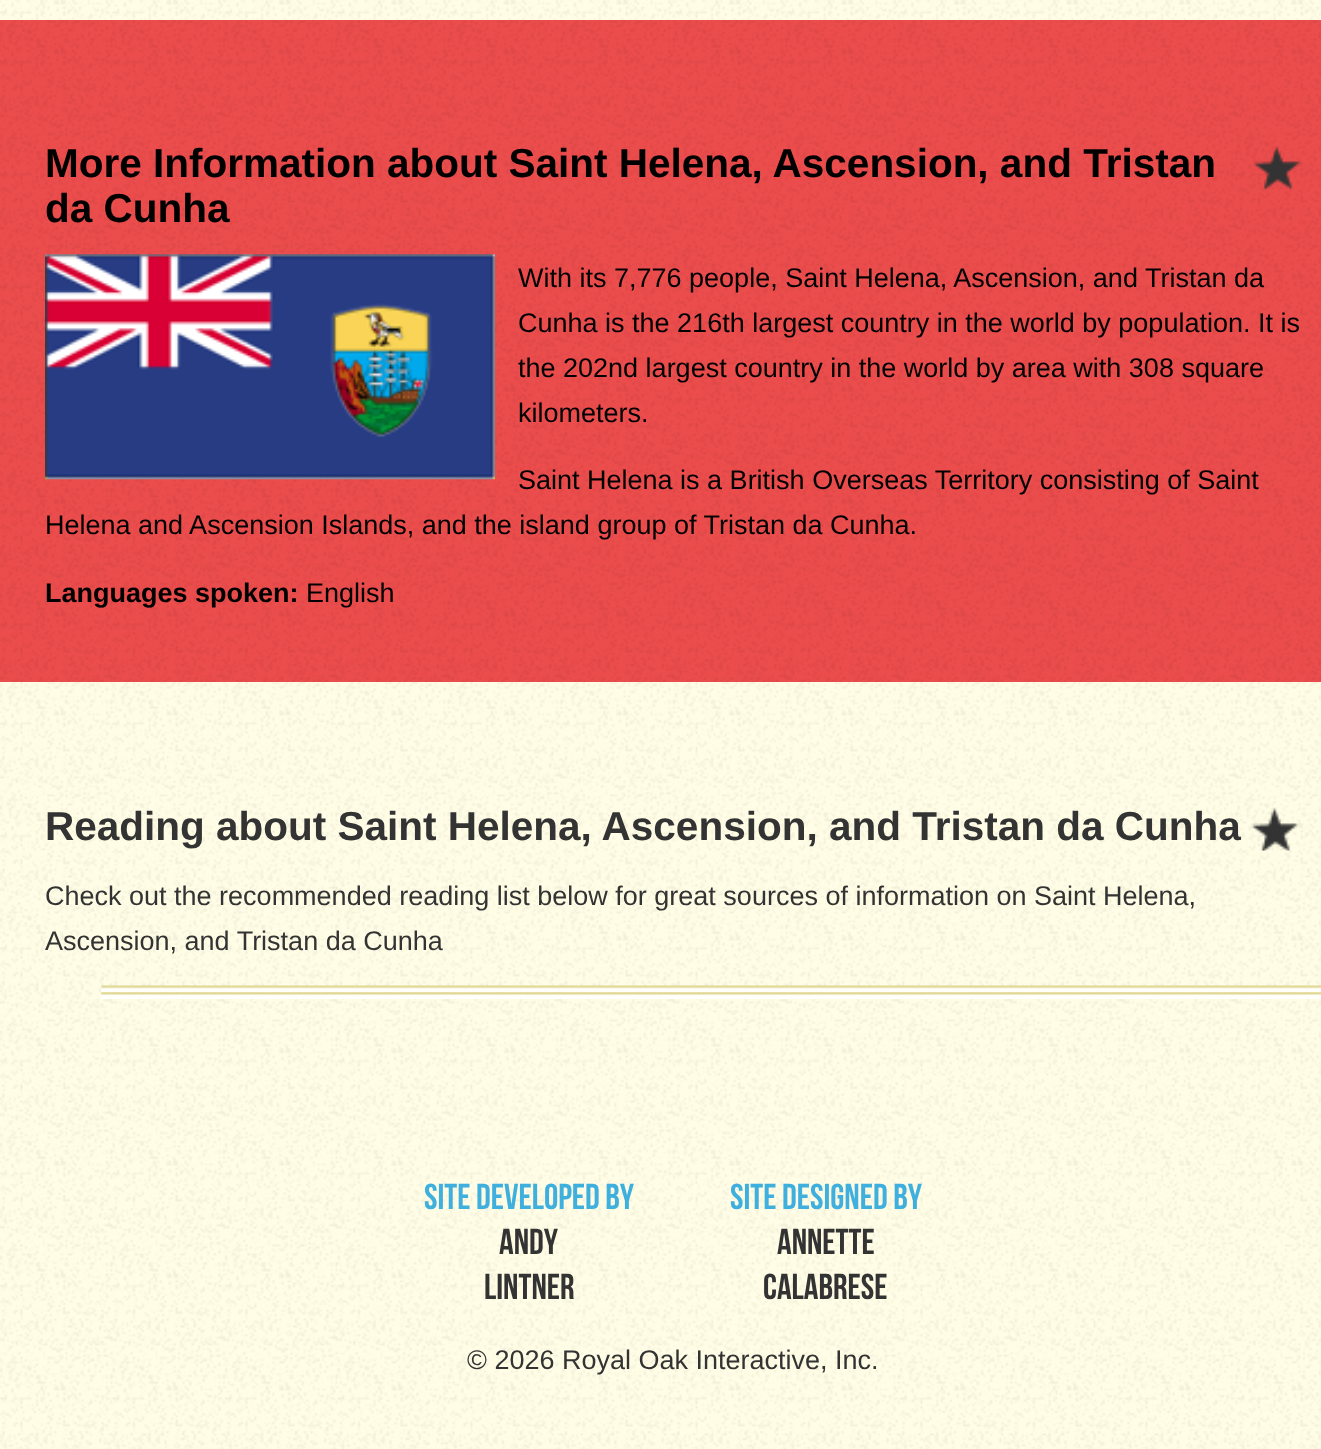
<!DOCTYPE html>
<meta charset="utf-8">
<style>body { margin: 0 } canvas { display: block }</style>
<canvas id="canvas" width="1321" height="1449"></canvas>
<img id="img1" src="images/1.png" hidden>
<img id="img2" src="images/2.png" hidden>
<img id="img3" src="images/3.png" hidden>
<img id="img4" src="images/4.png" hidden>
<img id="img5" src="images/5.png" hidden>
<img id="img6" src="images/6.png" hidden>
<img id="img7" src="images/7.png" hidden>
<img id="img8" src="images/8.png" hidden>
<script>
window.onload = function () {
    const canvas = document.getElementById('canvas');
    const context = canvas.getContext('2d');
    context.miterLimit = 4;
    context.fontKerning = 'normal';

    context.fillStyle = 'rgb(255, 253, 230)';
    context.fillRect(0, 0, 1321, 1449);
    context.drawImage(document.getElementById('img1'), 0, 0, 1321, 20);
    context.fillStyle = 'rgb(235, 76, 76)';
    context.fillRect(0, 20, 1321, 662);
    context.drawImage(document.getElementById('img2'), 0, 20, 1321, 662);
    context.drawImage(document.getElementById('img3'), 1253, 146, 48, 45);
    context.drawImage(document.getElementById('img4'), 45, 254, 450, 226);
    context.drawImage(document.getElementById('img5'), 0, 682, 1321, 767);
    context.drawImage(document.getElementById('img6'), 1251, 807, 48, 44);
    context.drawImage(document.getElementById('img7'), 101, 985, 1220, 8);
    context.drawImage(document.getElementById('img8'), 101, 992, 1220, 7);
    context.font = 'bold 40.5px Liberation Sans';
    context.fillStyle = 'rgb(0, 0, 0)';
    context.fillText('More Information about Saint Helena, Ascension, and Tristan', 45, 177);
    context.fillText('da Cunha', 45, 222);
    context.font = '27px Liberation Sans';
    context.fillText('With its 7,776 people, Saint Helena, Ascension, and Tristan da', 518, 287);
    context.fillText('Cunha is the 216th largest country in the world by population. It is', 518, 332);
    context.fillText('the 202nd largest country in the world by area with 308 square', 518, 377);
    context.fillText('kilometers.', 518, 422);
    context.fillText('Saint Helena is a British Overseas Territory consisting of Saint', 518, 489);
    context.fillText('Helena and Ascension Islands, and the island group of Tristan da Cunha.', 45, 534);
    context.font = 'bold 27px Liberation Sans';
    context.fillText('Languages spoken:', 45, 602);
    context.font = '27px Liberation Sans';
    context.fillText('English', 306, 602);
    context.font = 'bold 40.5px Liberation Sans';
    context.fillStyle = 'rgb(51, 51, 51)';
    context.fillText('Reading about Saint Helena, Ascension, and Tristan da Cunha', 45, 840);
    context.font = '27px Liberation Sans';
    context.fillText('Check out the recommended reading list below for great sources of information on Saint Helena,', 45, 905);
    context.fillText('Ascension, and Tristan da Cunha', 45, 950);
    context.font = '36px Bebas Neue';
    context.fillStyle = 'rgb(63, 175, 222)';
    context.fillText('site developed by', 424, 1209);
    context.fillStyle = 'rgb(51, 51, 51)';
    context.fillText('Andy', 499, 1254);
    context.fillText('Lintner', 484, 1299);
    context.fillStyle = 'rgb(63, 175, 222)';
    context.fillText('site designed by', 730, 1209);
    context.fillStyle = 'rgb(51, 51, 51)';
    context.fillText('Annette', 777, 1254);
    context.fillText('Calabrese', 763, 1299);
    context.font = '27px Liberation Sans';
    context.fillText('© 2026 Royal Oak Interactive, Inc.', 467, 1369);
};
</script>
